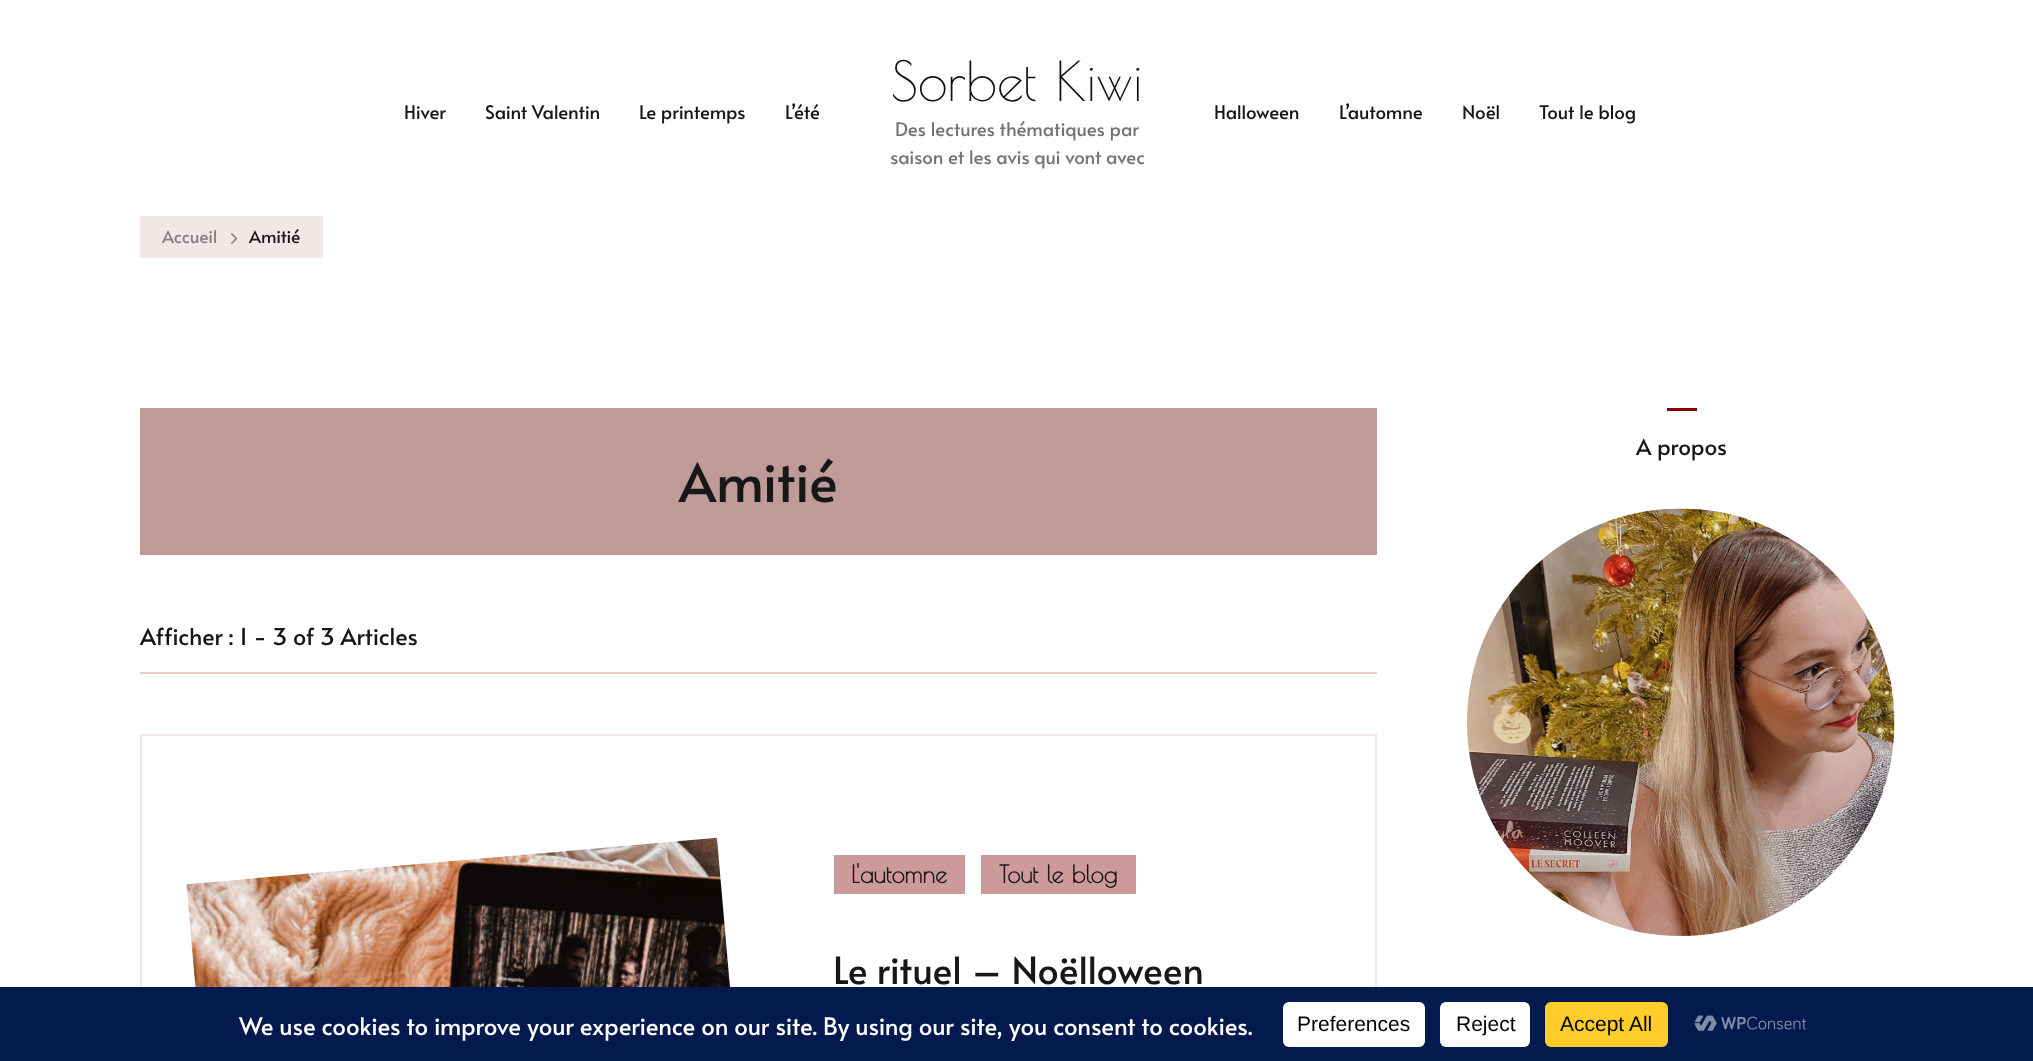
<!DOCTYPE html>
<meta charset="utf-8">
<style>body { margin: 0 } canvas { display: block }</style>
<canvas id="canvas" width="2033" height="1061"></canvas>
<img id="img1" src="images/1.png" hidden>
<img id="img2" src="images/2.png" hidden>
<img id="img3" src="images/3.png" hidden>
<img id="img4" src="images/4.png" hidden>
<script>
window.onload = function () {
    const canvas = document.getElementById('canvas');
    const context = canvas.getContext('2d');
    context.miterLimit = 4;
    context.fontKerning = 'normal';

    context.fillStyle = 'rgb(255, 255, 255)';
    context.fillRect(0, 0, 2033, 1061);
    context.fillStyle = 'rgb(243, 230, 230)';
    context.fillRect(140, 216, 183, 42);
    context.drawImage(document.getElementById('img1'), 231, 233, 6, 11);
    context.fillStyle = 'rgb(133, 0, 0)';
    context.fillRect(1667, 408, 30, 3);
    context.drawImage(document.getElementById('img2'), 1467, 508, 428, 428);
    context.fillStyle = 'rgb(192, 153, 153)';
    context.fillRect(140, 408, 1237, 147);
    context.fillStyle = 'rgb(231, 204, 204)';
    context.fillRect(140, 672, 1237, 2);
    context.strokeStyle = 'rgb(243, 230, 230)';
    context.lineWidth = 2;
    context.strokeRect(141, 735, 1235, 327);
    context.drawImage(document.getElementById('img3'), 186, 837, 544, 150);
    context.fillStyle = 'rgb(206, 153, 153)';
    context.fillRect(834, 855, 131, 39);
    context.fillRect(981, 855, 155, 39);
    context.fillStyle = 'rgb(4, 25, 78)';
    context.fillRect(0, 987, 2033, 74);
    context.fillStyle = 'rgb(255, 255, 255)';
    context.beginPath();
    context.roundRect(1283, 1002, 142, 45, 6);
    context.fill();
    context.beginPath();
    context.roundRect(1440, 1002, 90, 45, 6);
    context.fill();
    context.fillStyle = 'rgb(255, 205, 42)';
    context.beginPath();
    context.roundRect(1545, 1002, 123, 45, 6);
    context.fill();
    context.drawImage(document.getElementById('img4'), 1694, 1015, 112, 16);
    context.font = '18.7px Alata';
    context.fillStyle = 'rgb(23, 23, 23)';
    context.fillText('Hiver', 404, 119);
    context.fillText('Saint Valentin', 485, 119);
    context.fillText('Le printemps', 639, 119);
    context.fillText('L’été', 785, 119);
    context.font = '54px Poiret One';
    context.fillStyle = 'rgb(17, 17, 17)';
    context.fillText('Sorbet Kiwi', 891, 101);
    context.font = '18.7px Alata';
    context.fillStyle = 'rgb(116, 116, 116)';
    context.fillText('Des lectures thématiques par', 895, 136);
    context.fillText('saison et les avis qui vont avec', 890, 164);
    context.fillStyle = 'rgb(23, 23, 23)';
    context.fillText('Halloween', 1214, 119);
    context.fillText('L’automne', 1339, 119);
    context.fillText('Noël', 1462, 119);
    context.fillText('Tout le blog', 1539, 119);
    context.font = '17.5px Alata';
    context.fillStyle = 'rgb(133, 127, 127)';
    context.fillText('Accueil', 162, 243);
    context.fillStyle = 'rgb(23, 23, 23)';
    context.fillText('Amitié', 249, 243);
    context.font = '22.5px Alata';
    context.fillText('A propos', 1636, 455);
    context.font = '54px Alata';
    context.fillText('Amitié', 679, 502);
    context.font = '23.3px Alata';
    context.fillText('Afficher : 1 - 3 of 3 Articles', 140, 645);
    context.font = 'bold 24px Poiret One';
    context.fillText('L\'automne', 851, 883);
    context.fillText('Tout le blog', 999, 883);
    context.font = '37.4px Alata';
    context.fillText('Le rituel – Noëlloween', 833, 984);
    context.save();
    context.beginPath();
    context.rect(224, 1008, 1044, 33);
    context.clip();
    context.font = '24px Alata';
    context.fillStyle = 'rgb(255, 255, 255)';
    context.fillText('We use cookies to improve your experience on our site. By using our site, you consent to cookies.', 239, 1035);
    context.restore();
    context.font = '21px Liberation Sans';
    context.fillStyle = 'rgb(0, 0, 0)';
    context.fillText('Preferences', 1297, 1031);
    context.fillText('Reject', 1456, 1031);
    context.fillText('Accept All', 1560, 1031);
};
</script>
